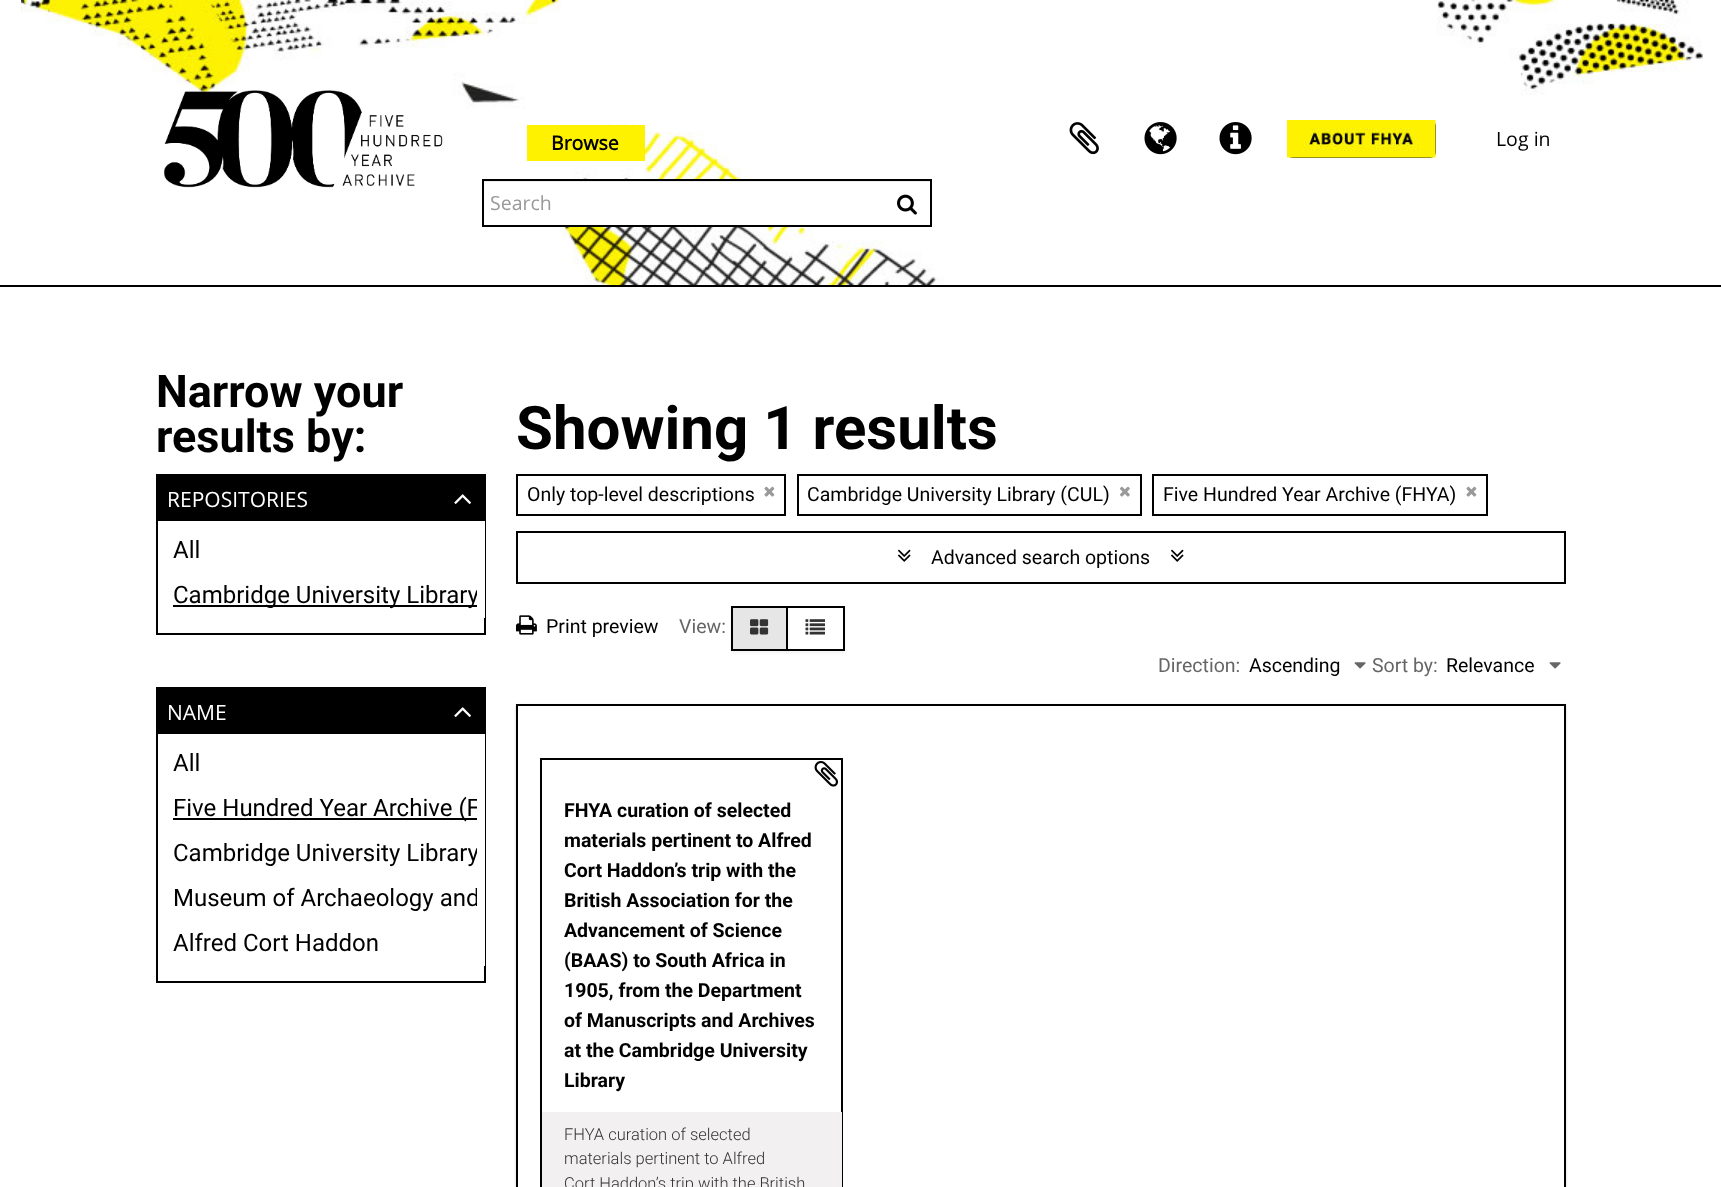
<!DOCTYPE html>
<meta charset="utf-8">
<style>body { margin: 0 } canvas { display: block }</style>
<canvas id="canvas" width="1721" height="1187"></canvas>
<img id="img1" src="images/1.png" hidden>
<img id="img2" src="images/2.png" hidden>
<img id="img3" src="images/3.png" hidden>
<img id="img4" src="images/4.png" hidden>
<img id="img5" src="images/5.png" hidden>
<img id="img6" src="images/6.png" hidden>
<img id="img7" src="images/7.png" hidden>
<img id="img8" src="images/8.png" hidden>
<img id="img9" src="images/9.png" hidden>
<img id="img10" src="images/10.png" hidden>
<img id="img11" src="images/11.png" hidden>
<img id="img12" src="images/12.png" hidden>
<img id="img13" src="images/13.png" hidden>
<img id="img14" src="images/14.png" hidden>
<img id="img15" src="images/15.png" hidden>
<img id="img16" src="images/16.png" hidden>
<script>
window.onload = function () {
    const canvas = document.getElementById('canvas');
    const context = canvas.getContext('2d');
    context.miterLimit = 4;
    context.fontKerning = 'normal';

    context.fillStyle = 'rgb(255, 255, 255)';
    context.fillRect(0, 0, 1721, 1187);
    context.drawImage(document.getElementById('img1'), 21, 0, 1682, 285);
    context.drawImage(document.getElementById('img2'), 164, 90, 279, 98);
    context.fillStyle = 'rgb(255, 242, 0)';
    context.fillRect(527, 125, 118, 36);
    context.fillStyle = 'rgb(255, 255, 255)';
    context.fillRect(537, 182, 265, 43);
    context.fillStyle = 'rgb(236, 236, 236)';
    context.fillRect(483, 181, 447, 1);
    context.strokeStyle = 'rgb(0, 0, 0)';
    context.lineWidth = 2;
    context.strokeRect(483, 180, 448, 46);
    context.drawImage(document.getElementById('img3'), 897, 194, 20, 21);
    context.drawImage(document.getElementById('img4'), 1069, 122, 30, 33);
    context.drawImage(document.getElementById('img5'), 1144, 122, 33, 33);
    context.drawImage(document.getElementById('img6'), 1219, 122, 33, 33);
    context.fillStyle = 'rgb(51, 51, 51)';
    context.beginPath();
    context.roundRect(1287, 120, 149, 38, 6);
    context.fill();
    context.drawImage(document.getElementById('img7'), 1287, 120, 149, 38);
    context.fillStyle = 'rgb(0, 0, 0)';
    context.fillRect(0, 285, 1721, 2);
    context.strokeRect(157, 475, 328, 159);
    context.fillRect(158, 476, 326, 45);
    context.drawImage(document.getElementById('img8'), 454, 494, 17, 10);
    context.fillStyle = 'rgb(255, 255, 255)';
    context.fillRect(484, 521, 1, 97);
    context.fillStyle = 'rgb(0, 0, 0)';
    context.fillRect(173, 605, 304, 2);
    context.strokeRect(157, 688, 328, 294);
    context.fillRect(158, 689, 326, 45);
    context.drawImage(document.getElementById('img8'), 454, 707, 17, 10);
    context.fillStyle = 'rgb(255, 255, 255)';
    context.fillRect(484, 734, 1, 232);
    context.fillStyle = 'rgb(0, 0, 0)';
    context.fillRect(173, 818, 304, 2);
    context.strokeRect(517, 475, 268, 40);
    context.drawImage(document.getElementById('img9'), 764, 486, 11, 11);
    context.strokeRect(798, 475, 343, 40);
    context.drawImage(document.getElementById('img10'), 1120, 486, 10, 11);
    context.strokeRect(1153, 475, 334, 40);
    context.drawImage(document.getElementById('img9'), 1466, 486, 11, 11);
    context.strokeRect(517, 532, 1048, 51);
    context.drawImage(document.getElementById('img11'), 898, 549, 13, 13);
    context.drawImage(document.getElementById('img11'), 1171, 549, 13, 13);
    context.drawImage(document.getElementById('img12'), 516, 615, 21, 20);
    context.fillStyle = 'rgba(0, 0, 0, 0.05)';
    context.filter = 'blur(1.5px)';
    context.beginPath();
    context.rect(786, 608, 59, 45);
    context.fill();
    context.filter = 'none';
    context.fillStyle = 'rgb(255, 255, 255)';
    context.beginPath();
    context.rect(787, 607, 57, 43);
    context.fill();
    context.stroke();
    context.fillStyle = 'rgba(0, 0, 0, 0.05)';
    context.filter = 'blur(1.5px)';
    context.beginPath();
    context.rect(731, 608, 57, 45);
    context.fill();
    context.filter = 'none';
    context.fillStyle = 'rgb(230, 230, 230)';
    context.beginPath();
    context.rect(732, 607, 55, 43);
    context.fill();
    context.stroke();
    context.drawImage(document.getElementById('img13'), 750, 619, 19, 16);
    context.drawImage(document.getElementById('img14'), 805, 619, 20, 16);
    context.drawImage(document.getElementById('img15'), 1354, 662, 12, 7);
    context.drawImage(document.getElementById('img15'), 1549, 662, 12, 7);
    context.save();
    context.beginPath();
    context.moveTo(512, 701);
    context.lineTo(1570, 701);
    context.lineTo(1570, 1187);
    context.lineTo(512, 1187);
    context.closePath();
    context.moveTo(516, 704);
    context.lineTo(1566, 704);
    context.lineTo(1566, 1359);
    context.lineTo(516, 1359);
    context.closePath();
    context.clip('evenodd');
    context.fillStyle = 'rgba(0, 0, 0, 0.2)';
    context.filter = 'blur(1px)';
    context.beginPath();
    context.rect(516, 705, 1050, 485);
    context.fill();
    context.filter = 'none';
    context.restore();
    context.strokeRect(517, 705, 1048, 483);
    context.strokeRect(541, 759, 301, 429);
    context.fillStyle = 'rgb(242, 240, 240)';
    context.fillRect(542, 1112, 300, 75);
    context.drawImage(document.getElementById('img16'), 814, 761, 24, 26);
    context.font = 'bold 19.5px Open Sans';
    context.fillStyle = 'rgb(0, 0, 0)';
    context.fillText('Browse', 551, 150);
    context.font = '19.5px Open Sans';
    context.fillStyle = 'rgb(153, 153, 153)';
    context.fillText('Search', 490, 210);
    context.fillStyle = 'rgb(0, 0, 0)';
    context.fillText('Log in', 1496, 146);
    context.font = 'bold 45px Roboto';
    context.fillText('Narrow your', 156, 407);
    context.fillText('results by:', 156, 452);
    context.font = '21px Open Sans';
    context.fillStyle = 'rgb(255, 255, 255)';
    context.fillText('REPOSITORIES', 167, 507);
    context.font = '24px Roboto';
    context.fillStyle = 'rgb(0, 0, 0)';
    context.fillText('All', 173, 558);
    context.save();
    context.beginPath();
    context.rect(165, 573, 312, 45);
    context.clip();
    context.fillText('Cambridge University Library', 173, 603);
    context.restore();
    context.font = '21px Open Sans';
    context.fillStyle = 'rgb(255, 255, 255)';
    context.fillText('NAME', 167, 720);
    context.font = '24px Roboto';
    context.fillStyle = 'rgb(0, 0, 0)';
    context.fillText('All', 173, 771);
    context.save();
    context.beginPath();
    context.rect(165, 786, 312, 45);
    context.clip();
    context.fillText('Five Hundred Year Archive (F', 173, 816);
    context.restore();
    context.save();
    context.beginPath();
    context.rect(165, 831, 312, 45);
    context.clip();
    context.fillText('Cambridge University Library', 173, 861);
    context.restore();
    context.save();
    context.beginPath();
    context.rect(165, 876, 312, 45);
    context.clip();
    context.fillText('Museum of Archaeology and', 173, 906);
    context.restore();
    context.fillText('Alfred Cort Haddon', 173, 951);
    context.font = 'bold 60px Roboto';
    context.fillText('Showing 1 results', 516, 449);
    context.font = '19.5px Roboto';
    context.fillText('Only top-level descriptions', 527, 501);
    context.fillText('Cambridge University Library (CUL)', 807, 501);
    context.fillText('Five Hundred Year Archive (FHYA)', 1163, 501);
    context.fillText('Advanced search options', 931, 564);
    context.fillText('Print preview', 546, 633);
    context.fillStyle = 'rgb(102, 102, 102)';
    context.fillText('View:', 679, 633);
    context.fillText('Direction:', 1158, 672);
    context.fillStyle = 'rgb(0, 0, 0)';
    context.fillText('Ascending', 1249, 672);
    context.fillStyle = 'rgb(102, 102, 102)';
    context.fillText('Sort by:', 1372, 672);
    context.fillStyle = 'rgb(0, 0, 0)';
    context.fillText('Relevance', 1446, 672);
    context.font = 'bold 19.5px Roboto';
    context.fillText('FHYA curation of selected', 564, 817);
    context.fillText('materials pertinent to Alfred', 564, 847);
    context.fillText('Cort Haddon’s trip with the', 564, 877);
    context.fillText('British Association for the', 564, 907);
    context.fillText('Advancement of Science', 564, 937);
    context.fillText('(BAAS) to South Africa in', 564, 967);
    context.fillText('1905, from the Department', 564, 997);
    context.fillText('of Manuscripts and Archives', 564, 1027);
    context.fillText('at the Cambridge University', 564, 1057);
    context.fillText('Library', 564, 1087);
    context.font = '300 16.5px Roboto';
    context.fillStyle = 'rgb(51, 51, 51)';
    context.fillText('FHYA curation of selected', 564, 1140);
    context.fillText('materials pertinent to Alfred', 564, 1164);
    context.fillText('Cort Haddon’s trip with the British', 564, 1189);
};
</script>
